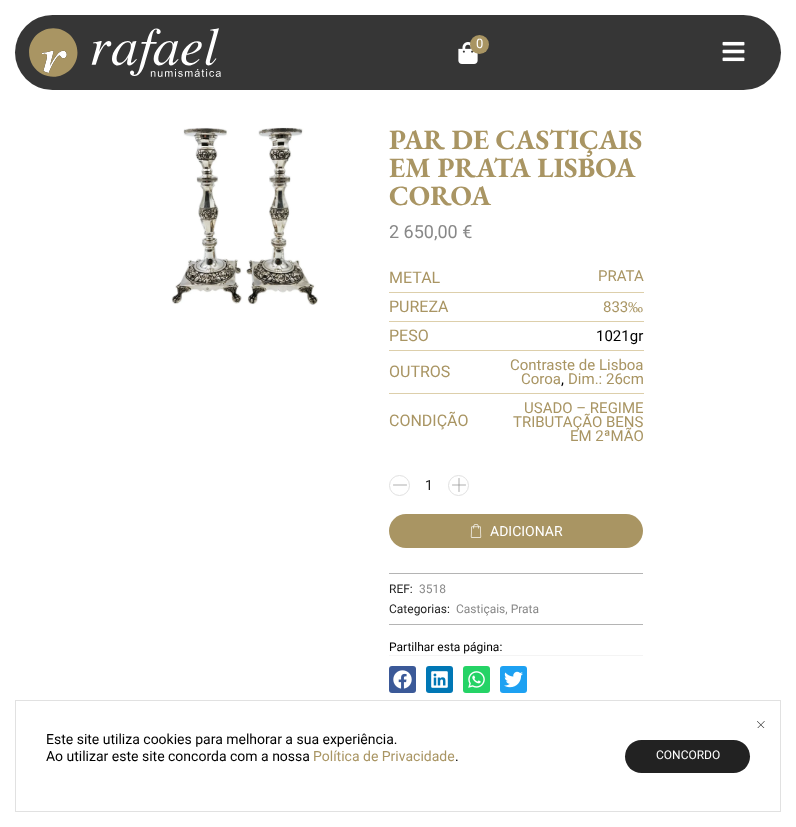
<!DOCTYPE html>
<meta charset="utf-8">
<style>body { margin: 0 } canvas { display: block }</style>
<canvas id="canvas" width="796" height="827"></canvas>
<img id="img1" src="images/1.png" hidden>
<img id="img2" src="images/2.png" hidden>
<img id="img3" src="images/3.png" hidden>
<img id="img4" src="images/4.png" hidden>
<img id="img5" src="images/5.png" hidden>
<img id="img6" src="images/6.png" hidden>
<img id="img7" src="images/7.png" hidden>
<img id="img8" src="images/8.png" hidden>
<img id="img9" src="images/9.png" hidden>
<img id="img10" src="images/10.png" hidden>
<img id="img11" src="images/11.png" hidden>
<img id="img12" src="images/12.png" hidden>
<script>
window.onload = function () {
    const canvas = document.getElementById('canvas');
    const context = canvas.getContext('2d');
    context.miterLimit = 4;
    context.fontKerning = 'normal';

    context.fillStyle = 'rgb(255, 255, 255)';
    context.fillRect(0, 0, 796, 827);
    context.fillStyle = 'rgb(54, 54, 54)';
    context.beginPath();
    context.roundRect(15, 15, 766, 75, 37.5);
    context.fill();
    context.drawImage(document.getElementById('img1'), 29, 28, 192, 49);
    context.drawImage(document.getElementById('img2'), 458, 42, 20, 22);
    context.fillStyle = 'rgb(169, 149, 99)';
    context.beginPath();
    context.arc(479.5, 44.5, 9.5, 0, 2 * Math.PI);
    context.fill();
    context.drawImage(document.getElementById('img3'), 722, 41, 23, 21);
    context.drawImage(document.getElementById('img4'), 171, 127, 147, 178);
    context.fillStyle = 'rgb(221, 207, 171)';
    context.fillRect(389, 292, 255, 1);
    context.fillRect(389, 321, 255, 1);
    context.fillRect(389, 350, 255, 1);
    context.fillRect(389, 393, 255, 1);
    context.beginPath();
    context.arc(399.5, 485.5, 10, 0, 2 * Math.PI);
    context.strokeStyle = 'rgb(225, 225, 225)';
    context.stroke();
    context.drawImage(document.getElementById('img5'), 393, 484, 14, 2);
    context.beginPath();
    context.arc(458.5, 485.5, 10, 0, 2 * Math.PI);
    context.stroke();
    context.drawImage(document.getElementById('img6'), 452, 478, 14, 14);
    context.fillStyle = 'rgb(169, 149, 99)';
    context.beginPath();
    context.roundRect(389, 514, 254, 34, 17);
    context.fill();
    context.drawImage(document.getElementById('img7'), 470, 524, 12, 14);
    context.fillStyle = 'rgb(180, 180, 180)';
    context.fillRect(389, 573, 254, 1);
    context.fillRect(389, 624, 254, 1);
    context.fillStyle = 'rgb(244, 244, 244)';
    context.fillRect(389, 655, 254, 1);
    context.fillStyle = 'rgb(59, 89, 152)';
    context.beginPath();
    context.roundRect(389, 666, 27, 27, 3);
    context.fill();
    context.drawImage(document.getElementById('img8'), 393, 670, 19, 19);
    context.fillStyle = 'rgb(0, 119, 181)';
    context.beginPath();
    context.roundRect(426, 666, 27, 27, 3);
    context.fill();
    context.drawImage(document.getElementById('img9'), 431, 671, 17, 17);
    context.fillStyle = 'rgb(37, 211, 102)';
    context.beginPath();
    context.roundRect(463, 666, 27, 27, 3);
    context.fill();
    context.drawImage(document.getElementById('img10'), 468, 671, 17, 17);
    context.fillStyle = 'rgb(29, 161, 242)';
    context.beginPath();
    context.roundRect(500, 666, 27, 27, 3);
    context.fill();
    context.drawImage(document.getElementById('img11'), 504, 671, 19, 17);
    context.strokeRect(15.5, 700.5, 765, 111);
    context.drawImage(document.getElementById('img12'), 757, 721, 8, 7);
    context.fillStyle = 'rgb(34, 34, 34)';
    context.beginPath();
    context.roundRect(625, 740, 125, 33, 16.5);
    context.fill();
    context.font = '13px Roboto';
    context.fillStyle = 'rgb(255, 255, 255)';
    context.fillText('0', 476, 48);
    context.font = 'bold 28px EB Garamond';
    context.fillStyle = 'rgb(169, 149, 99)';
    context.fillText('PAR DE CASTIÇAIS', 389, 149);
    context.fillText('EM PRATA LISBOA', 389, 177);
    context.fillText('COROA', 389, 205);
    context.font = '18px Roboto';
    context.fillStyle = 'rgb(136, 136, 136)';
    context.fillText('2 650,00 €', 389, 238);
    context.font = '16px Roboto';
    context.fillStyle = 'rgb(169, 149, 99)';
    context.fillText('METAL', 389, 283);
    context.font = '15px Roboto';
    context.fillText('PRATA', 598, 281);
    context.font = '16px Roboto';
    context.fillText('PUREZA', 389, 312);
    context.font = '15px Roboto';
    context.fillText('833', 603, 312);
    context.font = '15px Liberation Serif';
    context.fillText('‰', 628, 312);
    context.font = '16px Roboto';
    context.fillText('PESO', 389, 341);
    context.font = '15px Roboto';
    context.fillStyle = 'rgb(0, 0, 0)';
    context.fillText('1021gr', 596, 341);
    context.font = '16px Roboto';
    context.fillStyle = 'rgb(169, 149, 99)';
    context.fillText('OUTROS', 389, 377);
    context.font = '15px Roboto';
    context.fillText('Contraste de Lisboa', 510, 370);
    context.fillText('Coroa', 521, 384);
    context.fillStyle = 'rgb(0, 0, 0)';
    context.fillText(',', 561, 384);
    context.fillStyle = 'rgb(169, 149, 99)';
    context.fillText('Dim.: 26cm', 568, 384);
    context.font = '16px Roboto';
    context.fillText('CONDIÇÃO', 389, 426);
    context.font = '15px Roboto';
    context.fillText('USADO – REGIME', 524, 413);
    context.fillText('TRIBUTAÇÃO BENS', 513, 427);
    context.fillText('EM 2ªMÃO', 570, 441);
    context.font = '14px Roboto';
    context.fillStyle = 'rgb(34, 34, 34)';
    context.fillText('1', 425, 490);
    context.fillStyle = 'rgb(255, 255, 255)';
    context.fillText('ADICIONAR', 490, 536);
    context.font = '12px Roboto';
    context.fillStyle = 'rgb(34, 34, 34)';
    context.fillText('REF:', 389, 593);
    context.fillStyle = 'rgb(136, 136, 136)';
    context.fillText('3518', 419, 593);
    context.fillStyle = 'rgb(34, 34, 34)';
    context.fillText('Categorias:', 389, 613);
    context.fillStyle = 'rgb(136, 136, 136)';
    context.fillText('Castiçais, Prata', 456, 613);
    context.fillStyle = 'rgb(0, 0, 0)';
    context.fillText('Partilhar esta página:', 389, 651);
    context.font = '14px Roboto';
    context.fillText('Este site utiliza cookies para melhorar a sua experiência.', 46, 744);
    context.fillText('Ao utilizar este site concorda com a nossa', 46, 761);
    context.fillStyle = 'rgb(169, 149, 99)';
    context.fillText('Política de Privacidade', 313, 761);
    context.fillStyle = 'rgb(0, 0, 0)';
    context.fillText('.', 455, 761);
    context.font = '12px Roboto';
    context.fillStyle = 'rgb(255, 255, 255)';
    context.fillText('CONCORDO', 656, 759);
};
</script>
